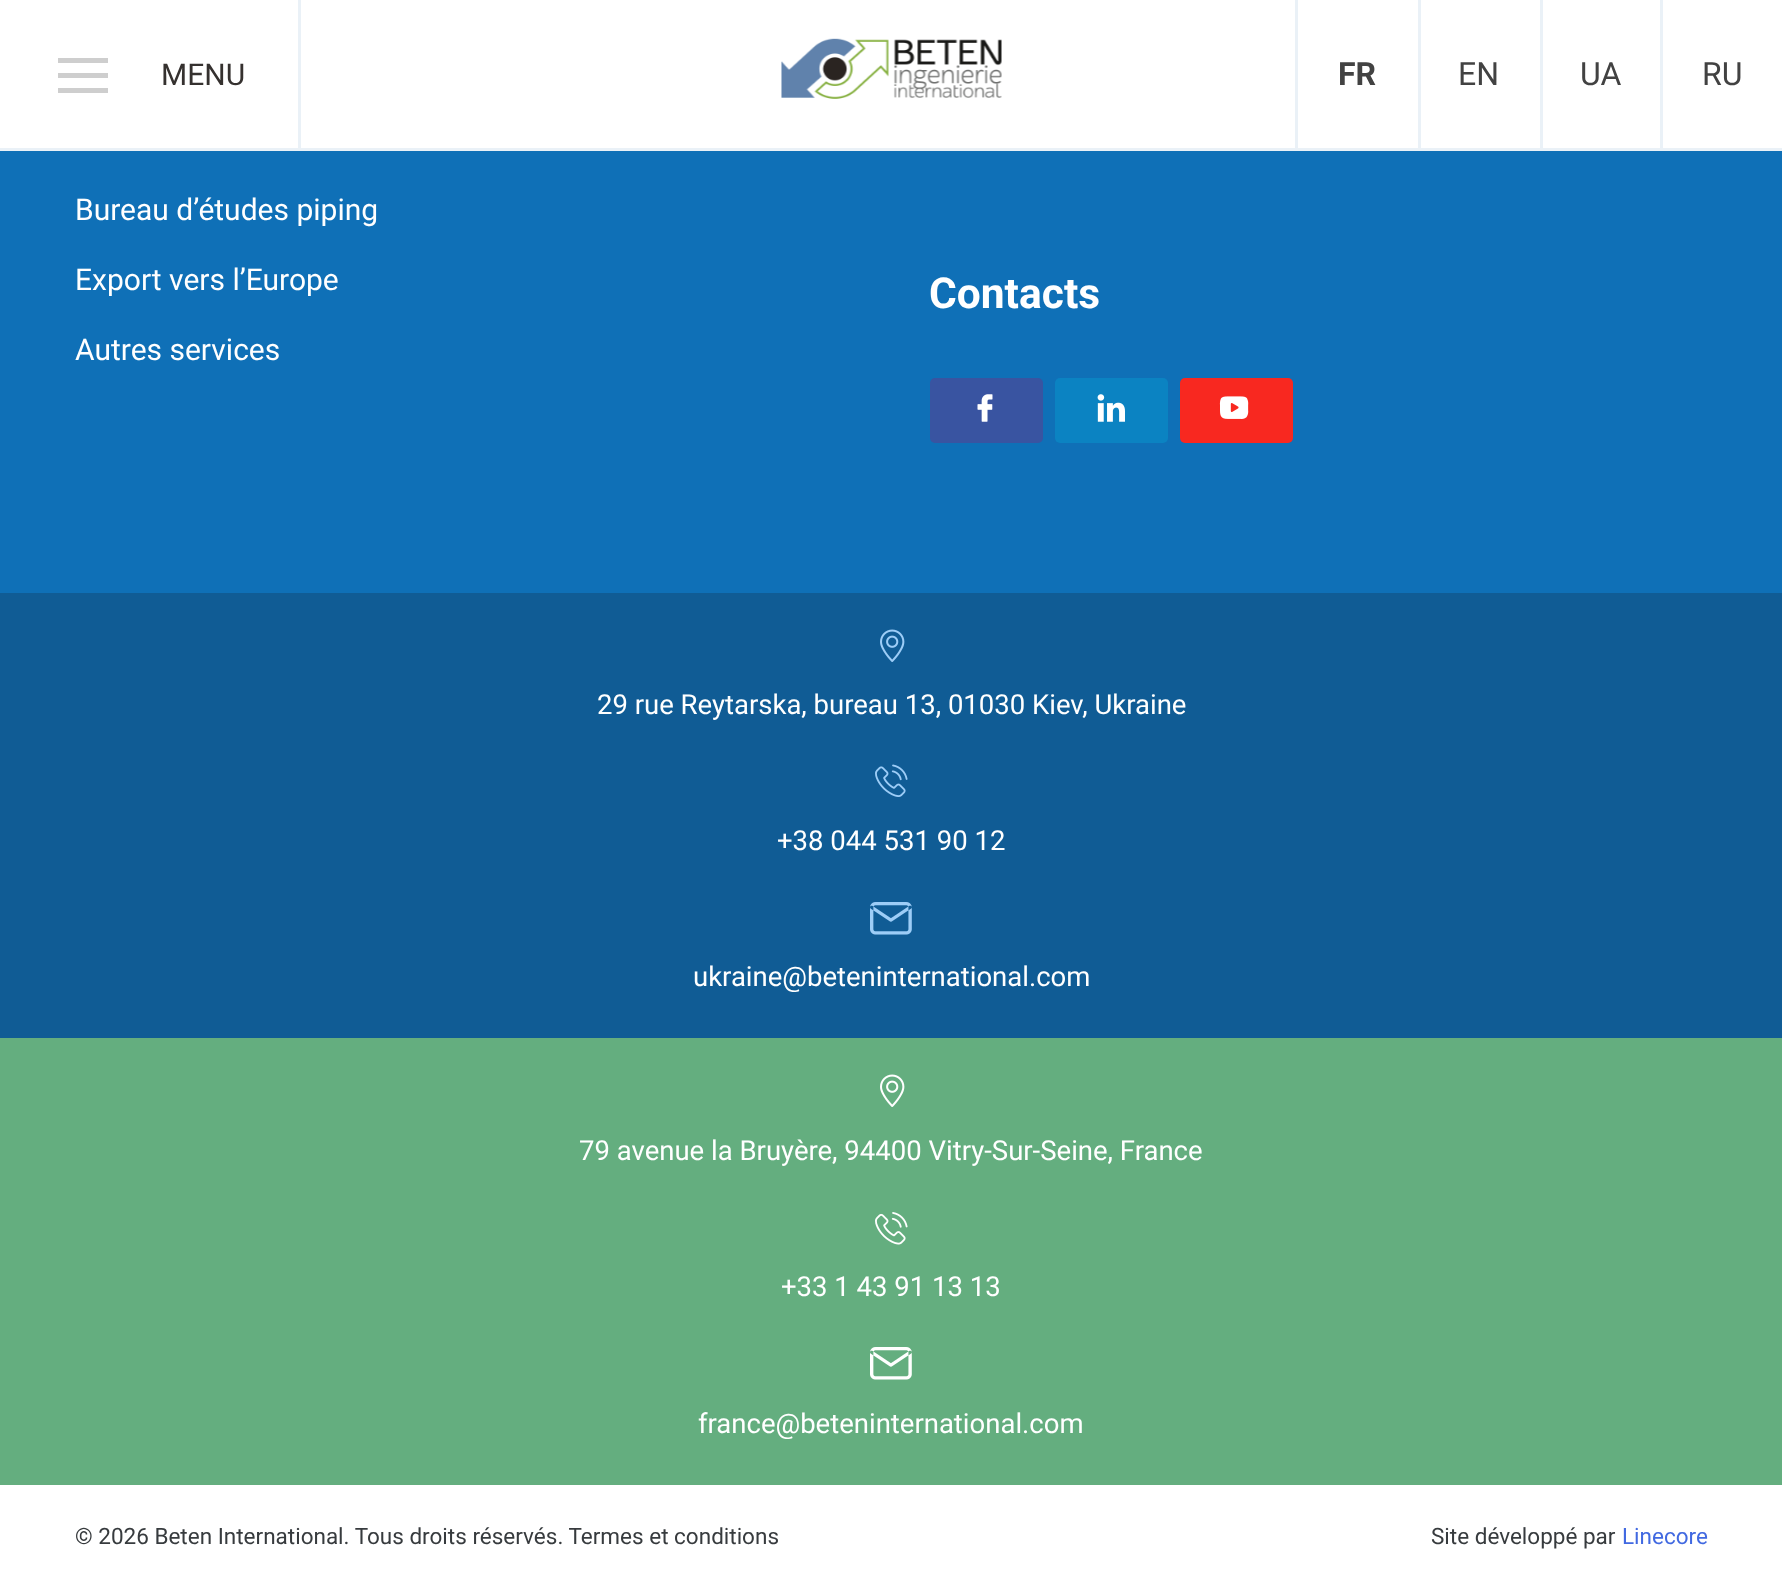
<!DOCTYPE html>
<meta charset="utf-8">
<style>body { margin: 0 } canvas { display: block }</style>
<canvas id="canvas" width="1782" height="1591"></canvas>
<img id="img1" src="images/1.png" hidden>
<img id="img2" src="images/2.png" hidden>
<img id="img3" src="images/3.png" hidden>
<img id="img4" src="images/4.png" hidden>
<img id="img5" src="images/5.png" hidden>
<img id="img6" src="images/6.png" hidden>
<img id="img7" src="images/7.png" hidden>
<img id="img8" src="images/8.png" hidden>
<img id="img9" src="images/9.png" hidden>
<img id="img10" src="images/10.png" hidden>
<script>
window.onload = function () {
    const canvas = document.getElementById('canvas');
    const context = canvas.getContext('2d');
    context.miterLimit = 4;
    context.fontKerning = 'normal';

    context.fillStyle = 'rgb(255, 255, 255)';
    context.fillRect(0, 0, 1782, 1591);
    context.fillStyle = 'rgb(234, 241, 247)';
    context.fillRect(0, 148, 1782, 3);
    context.fillRect(298, 0, 3, 150);
    context.fillStyle = 'rgb(206, 206, 206)';
    context.fillRect(58, 58, 50, 5);
    context.fillRect(58, 73, 50, 5);
    context.fillRect(58, 88, 50, 5);
    context.drawImage(document.getElementById('img1'), 781, 38, 221, 61);
    context.fillStyle = 'rgb(234, 241, 247)';
    context.fillRect(1295, 0, 3, 150);
    context.fillRect(1418, 0, 3, 150);
    context.fillRect(1540, 0, 3, 150);
    context.fillRect(1660, 0, 3, 150);
    context.fillStyle = 'rgb(15, 112, 183)';
    context.fillRect(0, 151, 1782, 442);
    context.fillStyle = 'rgb(57, 84, 161)';
    context.beginPath();
    context.roundRect(930, 378, 113, 65, 5);
    context.fill();
    context.drawImage(document.getElementById('img2'), 977, 394, 16, 28);
    context.fillStyle = 'rgb(11, 131, 194)';
    context.beginPath();
    context.roundRect(1055, 378, 113, 65, 5);
    context.fill();
    context.drawImage(document.getElementById('img3'), 1097, 394, 28, 28);
    context.fillStyle = 'rgb(248, 40, 32)';
    context.beginPath();
    context.roundRect(1180, 378, 113, 65, 5);
    context.fill();
    context.drawImage(document.getElementById('img4'), 1219, 396, 30, 23);
    context.fillStyle = 'rgb(16, 92, 149)';
    context.fillRect(0, 593, 1782, 445);
    context.drawImage(document.getElementById('img5'), 880, 629, 25, 33);
    context.drawImage(document.getElementById('img6'), 875, 764, 33, 33);
    context.drawImage(document.getElementById('img7'), 870, 902, 42, 33);
    context.fillStyle = 'rgb(100, 174, 127)';
    context.fillRect(0, 1038, 1782, 447);
    context.drawImage(document.getElementById('img8'), 880, 1074, 25, 33);
    context.drawImage(document.getElementById('img9'), 875, 1212, 33, 33);
    context.drawImage(document.getElementById('img10'), 870, 1347, 42, 33);
    context.font = '30px Roboto';
    context.fillStyle = 'rgb(53, 49, 47)';
    context.fillText('MENU', 161, 85);
    context.font = 'bold 32px Roboto';
    context.fillStyle = 'rgb(66, 66, 66)';
    context.fillText('FR', 1338, 85);
    context.font = '32px Roboto';
    context.fillText('EN', 1458, 85);
    context.fillText('UA', 1580, 85);
    context.fillText('RU', 1702, 85);
    context.font = '30px Roboto';
    context.fillStyle = 'rgb(255, 255, 255)';
    context.fillText('Bureau d’études piping', 75, 220);
    context.fillText('Export vers l’Europe', 75, 290);
    context.fillText('Autres services', 75, 360);
    context.font = 'bold 42.5px Roboto';
    context.fillText('Contacts', 929, 308);
    context.font = '27.5px Roboto';
    context.fillText('29 rue Reytarska, bureau 13, 01030 Kiev, Ukraine', 597, 714);
    context.fillText('+38 044 531 90 12', 777, 850);
    context.fillText('ukraine@beteninternational.com', 693, 986);
    context.fillText('79 avenue la Bruyère, 94400 Vitry-Sur-Seine, France', 579, 1160);
    context.fillText('+33 1 43 91 13 13', 781, 1296);
    context.fillText('france@beteninternational.com', 698, 1433);
    context.font = '22.5px Roboto';
    context.fillStyle = 'rgb(55, 59, 62)';
    context.fillText('© 2026 Beten International. Tous droits réservés. Termes et conditions', 75, 1544);
    context.fillText('Site développé par', 1431, 1544);
    context.fillStyle = 'rgb(65, 105, 225)';
    context.fillText('Linecore', 1622, 1544);
};
</script>
